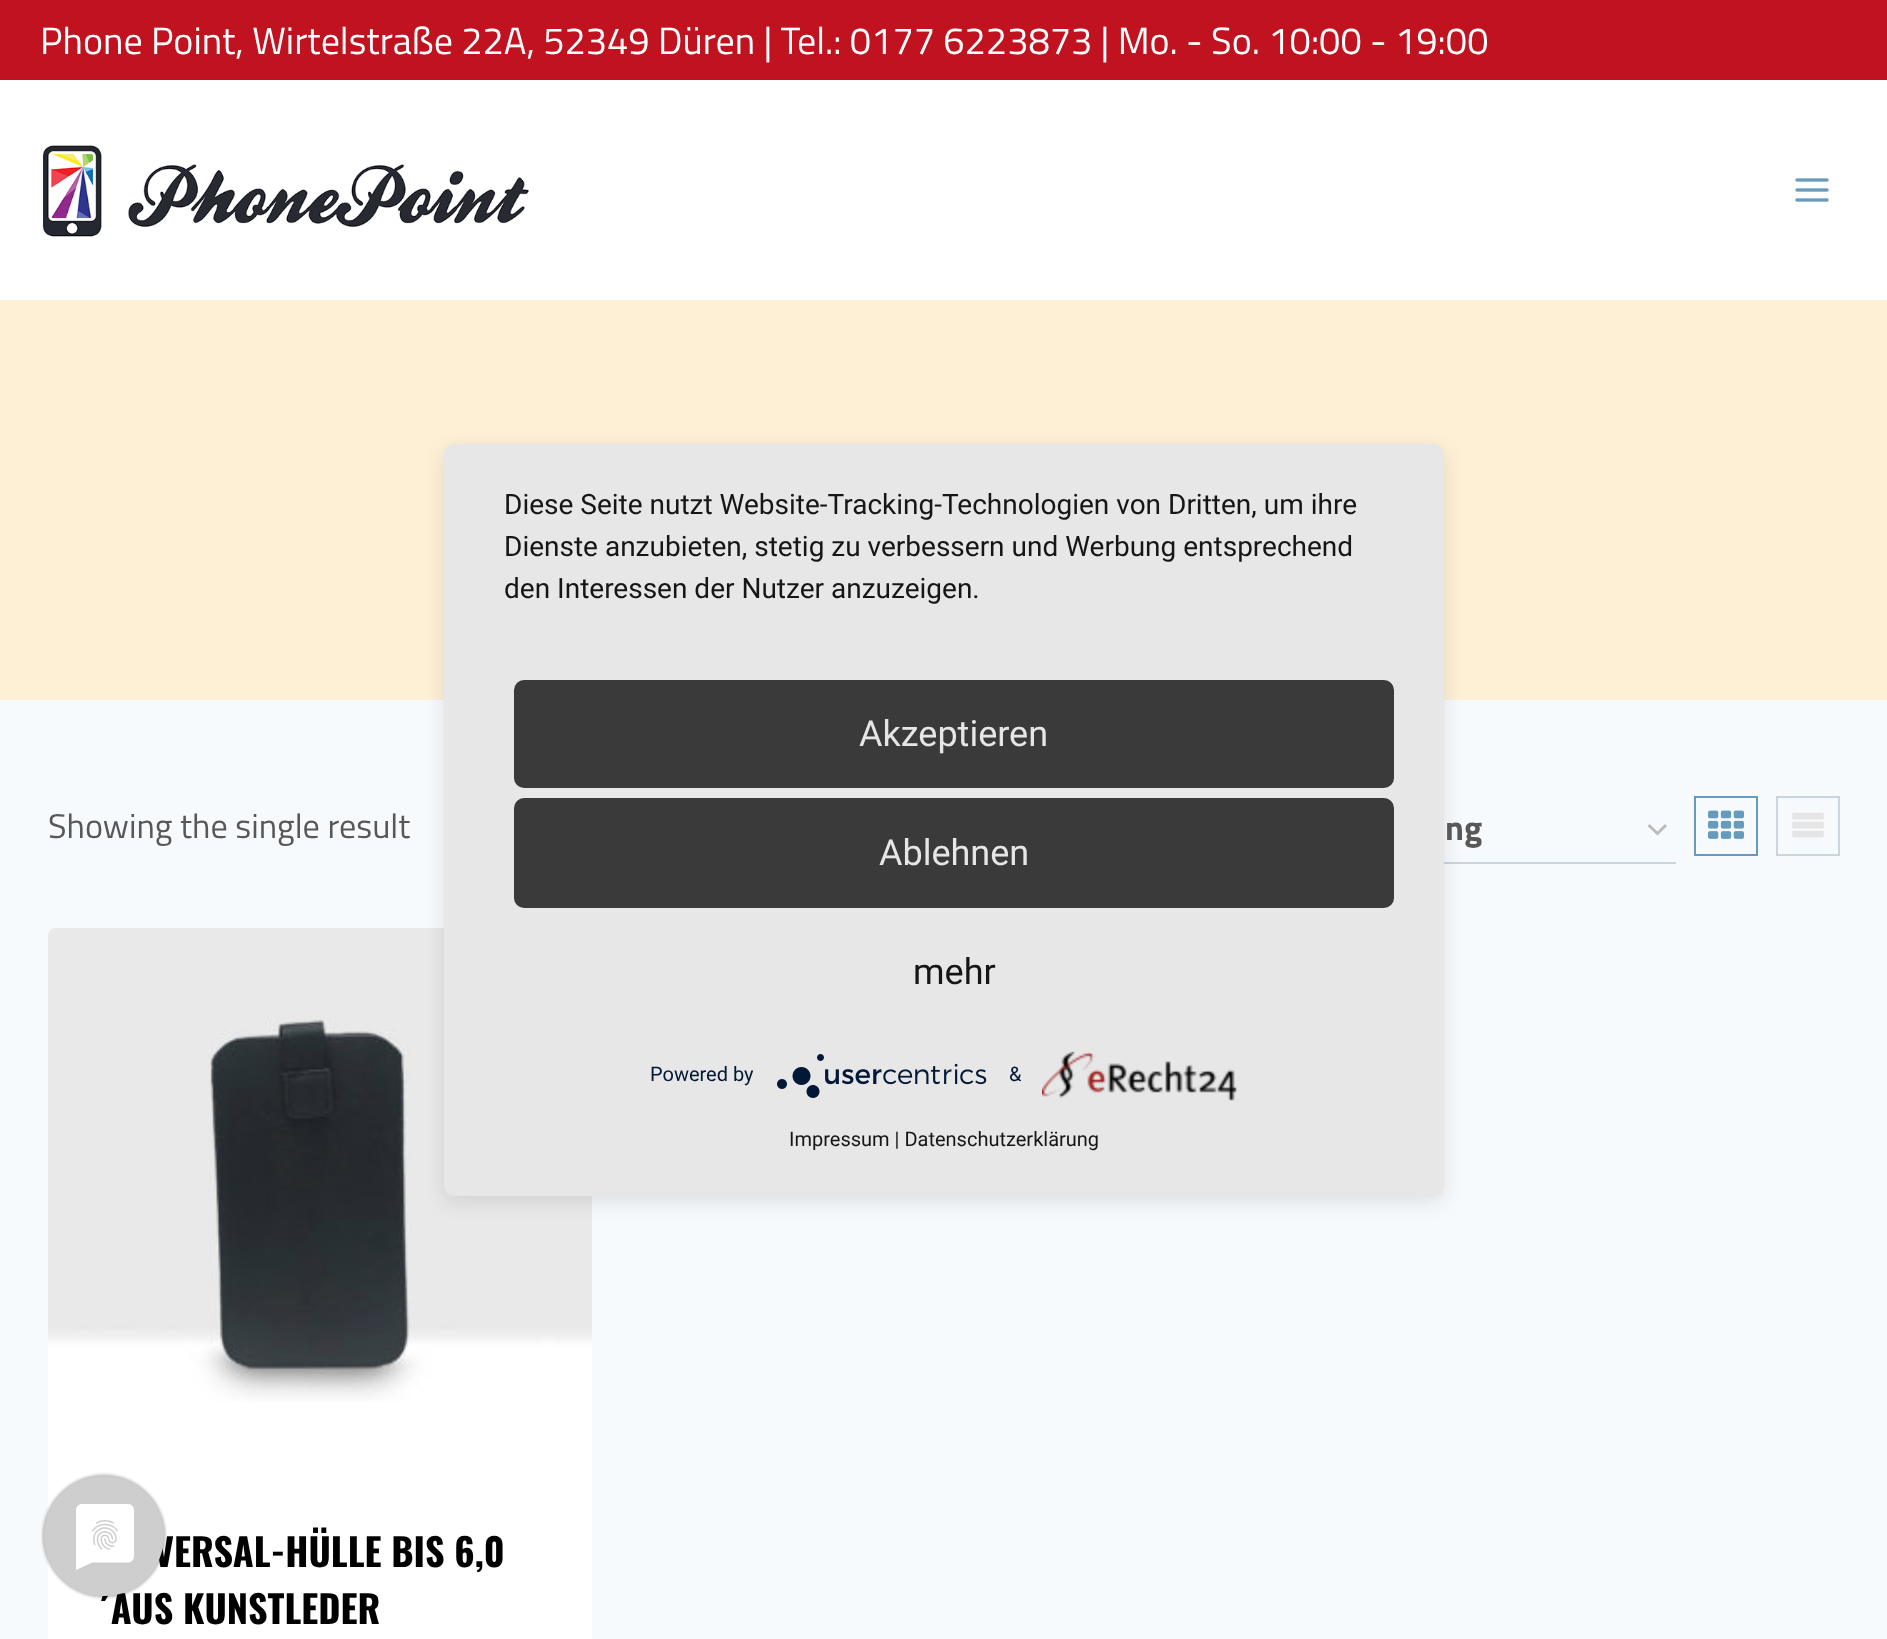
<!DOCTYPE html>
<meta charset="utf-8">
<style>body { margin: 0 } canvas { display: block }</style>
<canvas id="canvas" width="1887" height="1639"></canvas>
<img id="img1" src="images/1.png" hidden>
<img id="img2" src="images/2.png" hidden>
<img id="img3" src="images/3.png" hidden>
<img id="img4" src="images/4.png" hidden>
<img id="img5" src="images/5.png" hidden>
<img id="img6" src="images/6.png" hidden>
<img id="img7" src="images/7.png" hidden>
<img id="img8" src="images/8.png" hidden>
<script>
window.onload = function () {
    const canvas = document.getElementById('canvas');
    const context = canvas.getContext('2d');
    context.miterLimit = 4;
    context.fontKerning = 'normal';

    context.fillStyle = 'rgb(247, 250, 252)';
    context.fillRect(0, 0, 1887, 1639);
    context.fillStyle = 'rgb(255, 255, 255)';
    context.fillRect(0, 80, 1887, 220);
    context.fillStyle = 'rgb(193, 18, 31)';
    context.fillRect(0, 0, 1887, 80);
    context.drawImage(document.getElementById('img1'), 42, 145, 487, 92);
    context.drawImage(document.getElementById('img2'), 1795, 178, 34, 24);
    context.fillStyle = 'rgb(253, 240, 213)';
    context.fillRect(0, 300, 1887, 400);
    context.beginPath();
    context.moveTo(1648.5, 825);
    context.lineTo(1657.5, 833.5);
    context.lineTo(1666, 825);
    context.strokeStyle = 'rgb(187, 187, 187)';
    context.lineWidth = 2.9;
    context.stroke();
    context.fillStyle = 'rgb(203, 213, 224)';
    context.fillRect(1444, 862, 232, 2);
    context.strokeStyle = 'rgb(102, 155, 188)';
    context.lineWidth = 2;
    context.strokeRect(1695, 797, 62, 58);
    context.drawImage(document.getElementById('img3'), 1708, 810, 36, 29);
    context.strokeStyle = 'rgb(203, 213, 224)';
    context.strokeRect(1777, 797, 62, 58);
    context.drawImage(document.getElementById('img4'), 1792, 812, 32, 26);
    context.fillStyle = 'rgb(255, 255, 255)';
    context.beginPath();
    context.roundRect(48, 928, 544, 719, 8);
    context.fill();
    context.drawImage(document.getElementById('img5'), 48, 928, 544, 474);
    context.fillStyle = 'rgba(0, 0, 0, 0.1)';
    context.filter = 'blur(10px)';
    context.beginPath();
    context.roundRect(444, 450, 1000, 752, 10);
    context.fill();
    context.filter = 'none';
    context.fillStyle = 'rgb(231, 231, 231)';
    context.beginPath();
    context.roundRect(444, 444, 1000, 752, 10);
    context.fill();
    context.fillStyle = 'rgb(58, 58, 58)';
    context.beginPath();
    context.roundRect(514, 680, 880, 108, 10);
    context.fill();
    context.beginPath();
    context.roundRect(514, 798, 880, 110, 10);
    context.fill();
    context.drawImage(document.getElementById('img6'), 777, 1054, 210, 44);
    context.drawImage(document.getElementById('img7'), 1042, 1051, 195, 50);
    context.font = '38px Titillium Web';
    context.fillStyle = 'rgb(255, 255, 255)';
    context.fillText('Phone Point, Wirtelstraße 22A, 52349 Düren | Tel.: 0177 6223873 | Mo. - So. 10:00 - 19:00', 40, 54);
    context.font = '34.25px Titillium Web';
    context.fillStyle = 'rgb(88, 88, 88)';
    context.fillText('Showing the single result', 48, 838);
    context.font = 'bold 34.25px Titillium Web';
    context.fillText('ng', 1445, 840);
    context.font = 'bold 38px Oswald';
    context.fillStyle = 'rgb(0, 0, 0)';
    context.fillText('VERSAL-HÜLLE BIS 6,0', 154, 1567);
    context.fillText('´AUS KUNSTLEDER', 99, 1624);
    context.font = '28px Roboto';
    context.fillStyle = 'rgb(22, 22, 22)';
    context.fillText('Diese Seite nutzt Website-Tracking-Technologien von Dritten, um ihre', 504, 514);
    context.fillText('Dienste anzubieten, stetig zu verbessern und Werbung entsprechend', 504, 556);
    context.fillText('den Interessen der Nutzer anzuzeigen.', 504, 598);
    context.font = '36px Roboto';
    context.fillStyle = 'rgb(230, 230, 230)';
    context.fillText('Akzeptieren', 859, 746);
    context.fillText('Ablehnen', 879, 865);
    context.fillStyle = 'rgb(22, 22, 22)';
    context.fillText('mehr', 913, 984);
    context.font = '20px Roboto';
    context.fillStyle = 'rgb(2, 24, 54)';
    context.fillText('Powered by', 650, 1081);
    context.fillText('&', 1009, 1081);
    context.fillStyle = 'rgb(22, 22, 22)';
    context.fillText('Impressum | Datenschutzerklärung', 789, 1146);
    context.drawImage(document.getElementById('img8'), 41, 1472, 126, 128);
};
</script>
